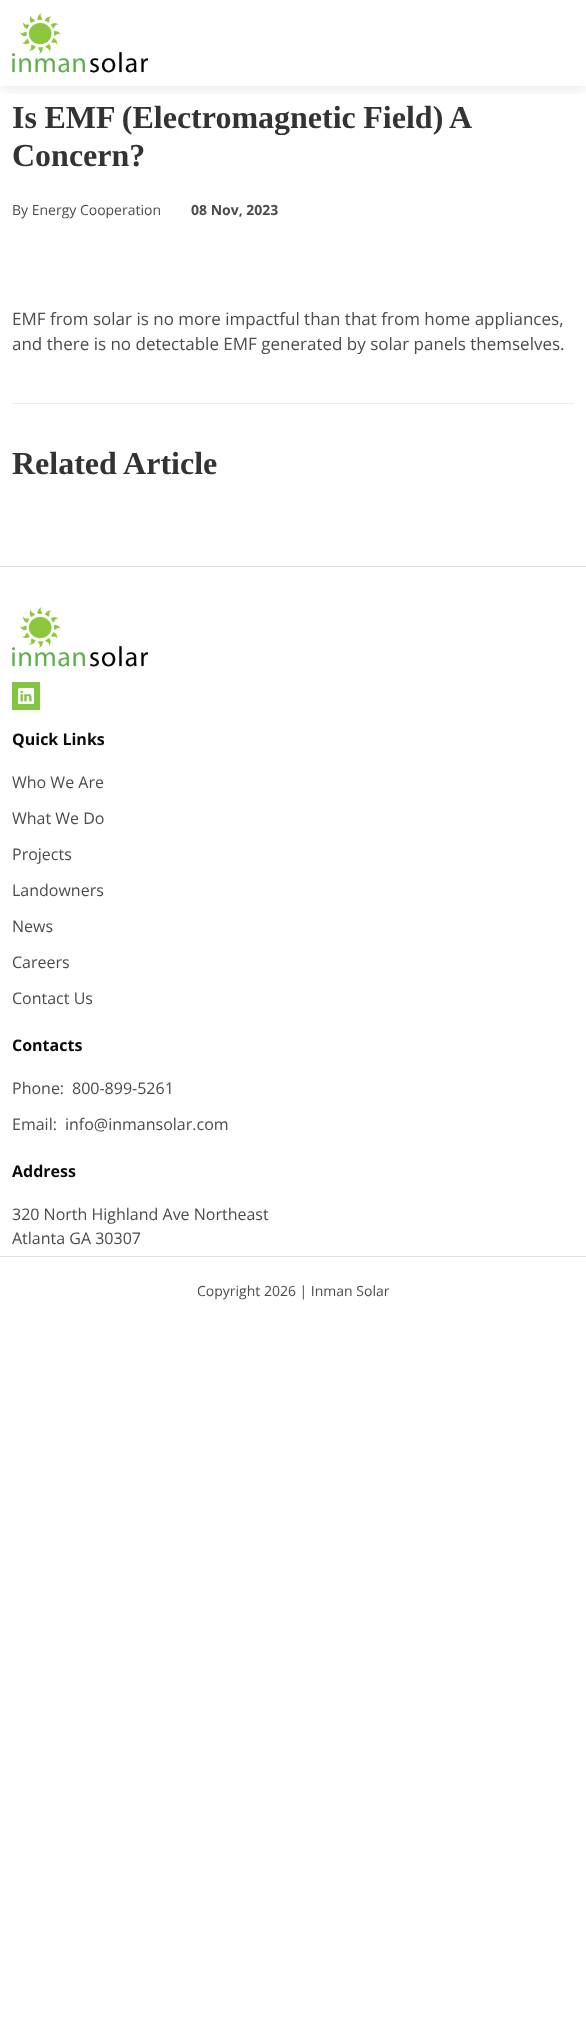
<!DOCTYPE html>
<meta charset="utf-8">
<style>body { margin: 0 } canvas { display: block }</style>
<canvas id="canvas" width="586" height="2022"></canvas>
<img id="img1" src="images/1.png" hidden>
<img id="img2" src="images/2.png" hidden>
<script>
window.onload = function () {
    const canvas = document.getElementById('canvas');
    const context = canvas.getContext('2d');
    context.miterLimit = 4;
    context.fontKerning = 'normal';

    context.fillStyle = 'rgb(255, 255, 255)';
    context.fillRect(0, 0, 586, 2022);
    context.save();
    context.beginPath();
    context.rect(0, 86, 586, 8);
    context.clip();
    context.fillStyle = 'rgba(0, 0, 0, 0.1)';
    context.filter = 'blur(7.5px)';
    context.beginPath();
    context.rect(0, 2, 586, 86);
    context.fill();
    context.filter = 'none';
    context.restore();
    context.drawImage(document.getElementById('img1'), 12, 13, 136, 60);
    context.fillStyle = 'rgb(238, 238, 238)';
    context.fillRect(12, 403, 562, 1);
    context.fillStyle = 'rgb(226, 226, 226)';
    context.fillRect(0, 566, 586, 1);
    context.drawImage(document.getElementById('img1'), 12, 607, 136, 60);
    context.fillStyle = 'rgb(131, 196, 65)';
    context.fillRect(12, 682, 28, 28);
    context.drawImage(document.getElementById('img2'), 18, 688, 16, 16);
    context.fillStyle = 'rgb(226, 226, 226)';
    context.fillRect(0, 1256, 586, 1);
    context.wordSpacing = '-0.5px';
    context.font = 'bold 32px Liberation Serif';
    context.fillStyle = 'rgb(51, 51, 51)';
    context.fillText('Is EMF (Electromagnetic Field) A', 12, 128);
    context.wordSpacing = '0px';
    context.fillText('Concern?', 12, 166);
    context.font = '14px Open Sans';
    context.fillStyle = 'rgb(75, 75, 75)';
    context.fillText('By Energy Cooperation', 12, 215);
    context.font = 'bold 14px Open Sans';
    context.fillText('08 Nov, 2023', 191, 215);
    context.font = '17px Open Sans';
    context.fillText('EMF from solar is no more impactful than that from home appliances,', 12, 325);
    context.fillText('and there is no detectable EMF generated by solar panels themselves.', 12, 350);
    context.font = 'bold 32px Liberation Serif';
    context.fillStyle = 'rgb(51, 51, 51)';
    context.fillText('Related Article', 12, 474);
    context.font = 'bold 16px Open Sans';
    context.fillStyle = 'rgb(10, 10, 10)';
    context.fillText('Quick Links', 12, 745);
    context.font = '16px Open Sans';
    context.fillStyle = 'rgb(75, 75, 75)';
    context.fillText('Who We Are', 12, 788);
    context.fillText('What We Do', 12, 824);
    context.fillText('Projects', 12, 860);
    context.fillText('Landowners', 12, 896);
    context.fillText('News', 12, 932);
    context.fillText('Careers', 12, 968);
    context.fillText('Contact Us', 12, 1004);
    context.font = 'bold 16px Open Sans';
    context.fillStyle = 'rgb(10, 10, 10)';
    context.fillText('Contacts', 12, 1051);
    context.font = '16px Open Sans';
    context.fillStyle = 'rgb(75, 75, 75)';
    context.fillText('Phone:', 12, 1094);
    context.fillText('800-899-5261', 72, 1094);
    context.fillText('Email:', 12, 1130);
    context.fillText('info@inmansolar.com', 65, 1130);
    context.font = 'bold 16px Open Sans';
    context.fillStyle = 'rgb(10, 10, 10)';
    context.fillText('Address', 12, 1177);
    context.font = '16px Open Sans';
    context.fillStyle = 'rgb(75, 75, 75)';
    context.fillText('320 North Highland Ave Northeast', 12, 1220);
    context.fillText('Atlanta GA 30307', 12, 1244);
    context.font = '14px Open Sans';
    context.fillText('Copyright 2026 | Inman Solar', 197, 1296);
};
</script>
